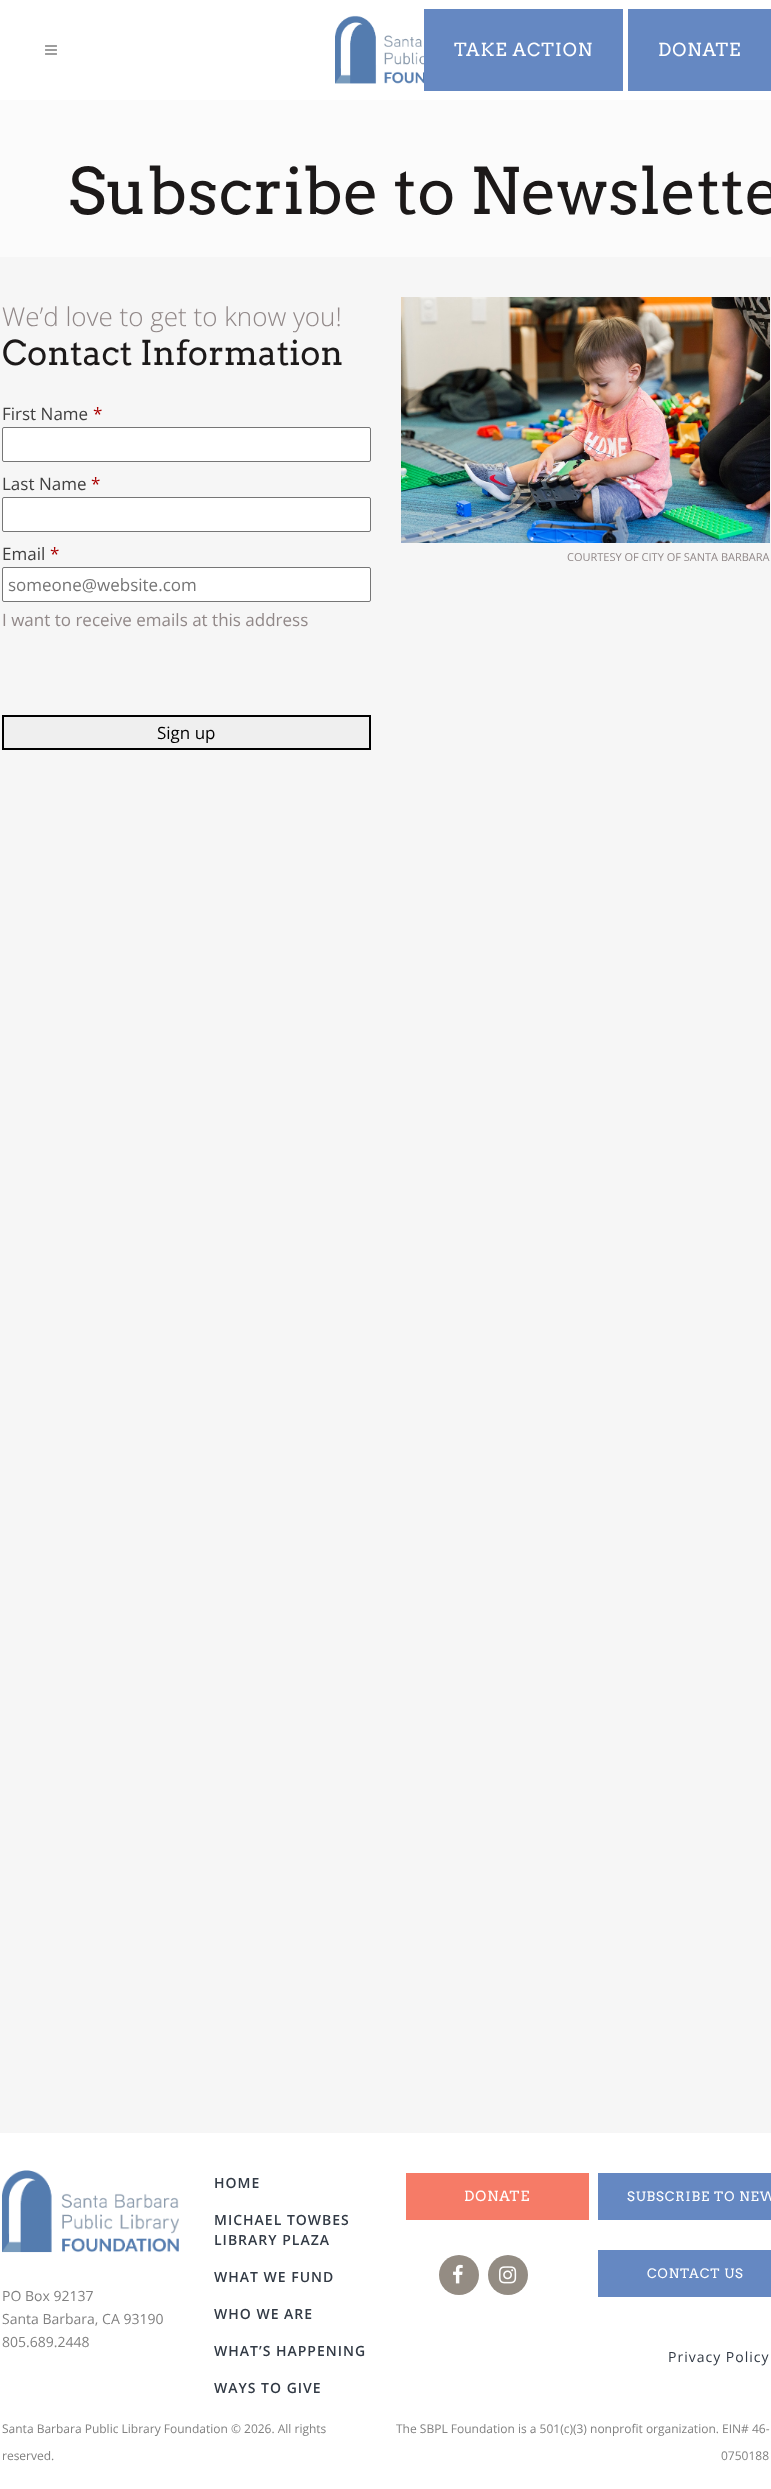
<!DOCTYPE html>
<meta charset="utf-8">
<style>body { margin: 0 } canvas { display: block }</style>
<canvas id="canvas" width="771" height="2489"></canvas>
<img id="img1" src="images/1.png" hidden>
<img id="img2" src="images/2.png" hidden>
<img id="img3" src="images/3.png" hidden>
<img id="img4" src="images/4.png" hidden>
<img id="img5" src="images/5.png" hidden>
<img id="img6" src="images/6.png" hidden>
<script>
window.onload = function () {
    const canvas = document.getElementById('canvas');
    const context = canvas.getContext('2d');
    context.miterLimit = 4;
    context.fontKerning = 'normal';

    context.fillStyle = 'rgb(246, 246, 246)';
    context.fillRect(0, 0, 771, 2489);
    context.fillStyle = 'rgb(255, 255, 255)';
    context.fillRect(0, 0, 771, 100);
    context.drawImage(document.getElementById('img1'), 45, 45, 12, 10);
    context.drawImage(document.getElementById('img2'), 335, 15, 89, 69);
    context.fillStyle = 'rgb(101, 136, 194)';
    context.fillRect(424, 9, 199, 82);
    context.fillRect(628, 9, 143, 82);
    context.fillStyle = 'rgb(251, 251, 251)';
    context.fillRect(0, 100, 771, 157);
    context.fillStyle = 'rgb(255, 255, 255)';
    context.beginPath();
    context.roundRect(2.5, 427.5, 368, 34, 1.5);
    context.fill();
    context.strokeStyle = 'rgb(118, 118, 118)';
    context.stroke();
    context.beginPath();
    context.roundRect(2.5, 497.5, 368, 34, 1.5);
    context.fill();
    context.stroke();
    context.beginPath();
    context.roundRect(2.5, 567.5, 368, 34, 1.5);
    context.fill();
    context.stroke();
    context.fillStyle = 'rgb(239, 239, 239)';
    context.beginPath();
    context.rect(3, 716, 367, 33);
    context.fill();
    context.strokeStyle = 'rgb(0, 0, 0)';
    context.lineWidth = 2;
    context.stroke();
    context.drawImage(document.getElementById('img3'), 401, 297, 369, 246);
    context.fillStyle = 'rgb(255, 255, 255)';
    context.fillRect(0, 2133, 771, 356);
    context.drawImage(document.getElementById('img4'), 2, 2170, 177, 83);
    context.fillStyle = 'rgb(246, 123, 103)';
    context.fillRect(406, 2173, 183, 47);
    context.fillStyle = 'rgb(148, 140, 131)';
    context.beginPath();
    context.arc(459, 2275, 20, 0, 2 * Math.PI);
    context.fill();
    context.drawImage(document.getElementById('img5'), 453, 2264, 10, 20);
    context.fillStyle = 'rgb(147, 140, 131)';
    context.beginPath();
    context.arc(508, 2275, 20, 0, 2 * Math.PI);
    context.fill();
    context.drawImage(document.getElementById('img6'), 499, 2266, 18, 18);
    context.fillStyle = 'rgb(101, 136, 194)';
    context.fillRect(598, 2173, 173, 47);
    context.fillRect(598, 2250, 173, 47);
    context.letterSpacing = '1px';
    context.font = '18px Arvo';
    context.fillStyle = 'rgb(255, 255, 255)';
    context.fillText('TAKE ACTION', 454, 56);
    context.fillText('DONATE', 658, 56);
    context.letterSpacing = '0px';
    context.font = '64px Arvo';
    context.fillStyle = 'rgb(28, 25, 25)';
    context.fillText('Subscribe to Newslette', 68, 214);
    context.font = '300 26px Open Sans';
    context.fillStyle = 'rgb(145, 136, 136)';
    context.fillText('We’d love to get to know you!', 2, 326);
    context.font = '34px Arvo';
    context.fillStyle = 'rgb(28, 25, 25)';
    context.fillText('Contact Information', 2, 365);
    context.font = '17px Open Sans';
    context.fillStyle = 'rgb(64, 64, 64)';
    context.fillText('First Name', 2, 420);
    context.fillStyle = 'rgb(170, 0, 0)';
    context.fillText('*', 93, 420);
    context.fillStyle = 'rgb(64, 64, 64)';
    context.fillText('Last Name', 2, 490);
    context.fillStyle = 'rgb(170, 0, 0)';
    context.fillText('*', 91, 490);
    context.fillStyle = 'rgb(64, 64, 64)';
    context.fillText('Email', 2, 560);
    context.fillStyle = 'rgb(170, 0, 0)';
    context.fillText('*', 50, 560);
    context.fillStyle = 'rgb(117, 117, 117)';
    context.fillText('someone@website.com', 8, 591);
    context.fillStyle = 'rgb(145, 136, 136)';
    context.fillText('I want to receive emails at this address', 2, 626);
    context.fillStyle = 'rgb(0, 0, 0)';
    context.fillText('Sign up', 157, 739);
    context.font = '11px Open Sans';
    context.fillStyle = 'rgb(145, 136, 136)';
    context.fillText('COURTESY OF CITY OF SANTA BARBARA', 567, 561);
    context.font = '14px Open Sans';
    context.fillStyle = 'rgb(129, 129, 129)';
    context.fillText('PO Box 92137', 2, 2301);
    context.fillText('Santa Barbara, CA 93190', 2, 2324);
    context.fillText('805.689.2448', 2, 2347);
    context.letterSpacing = '1px';
    context.font = '600 14px Open Sans';
    context.fillStyle = 'rgb(50, 58, 69)';
    context.fillText('HOME', 214, 2188);
    context.fillText('MICHAEL TOWBES', 214, 2225);
    context.fillText('LIBRARY PLAZA', 214, 2245);
    context.fillText('WHAT WE FUND', 214, 2282);
    context.fillText('WHO WE ARE', 214, 2319);
    context.fillText('WHAT’S HAPPENING', 214, 2356);
    context.fillText('WAYS TO GIVE', 214, 2393);
    context.font = '14px Arvo';
    context.fillStyle = 'rgb(255, 255, 255)';
    context.fillText('DONATE', 464, 2201);
    context.font = '13px Arvo';
    context.fillText('SUBSCRIBE TO NEW', 627, 2201);
    context.fillText('CONTACT US', 647, 2278);
    context.font = '14px Open Sans';
    context.fillStyle = 'rgb(50, 58, 69)';
    context.fillText('Privacy Policy', 668, 2362);
    context.letterSpacing = '0px';
    context.font = '12px Open Sans';
    context.fillStyle = 'rgb(129, 129, 129)';
    context.fillText('Santa Barbara Public Library Foundation © 2026. All rights', 2, 2433);
    context.fillText('reserved.', 2, 2460);
    context.fillText('The SBPL Foundation is a 501(c)(3) nonprofit organization. EIN# 46-', 396, 2433);
    context.fillText('0750188', 721, 2460);
};
</script>
